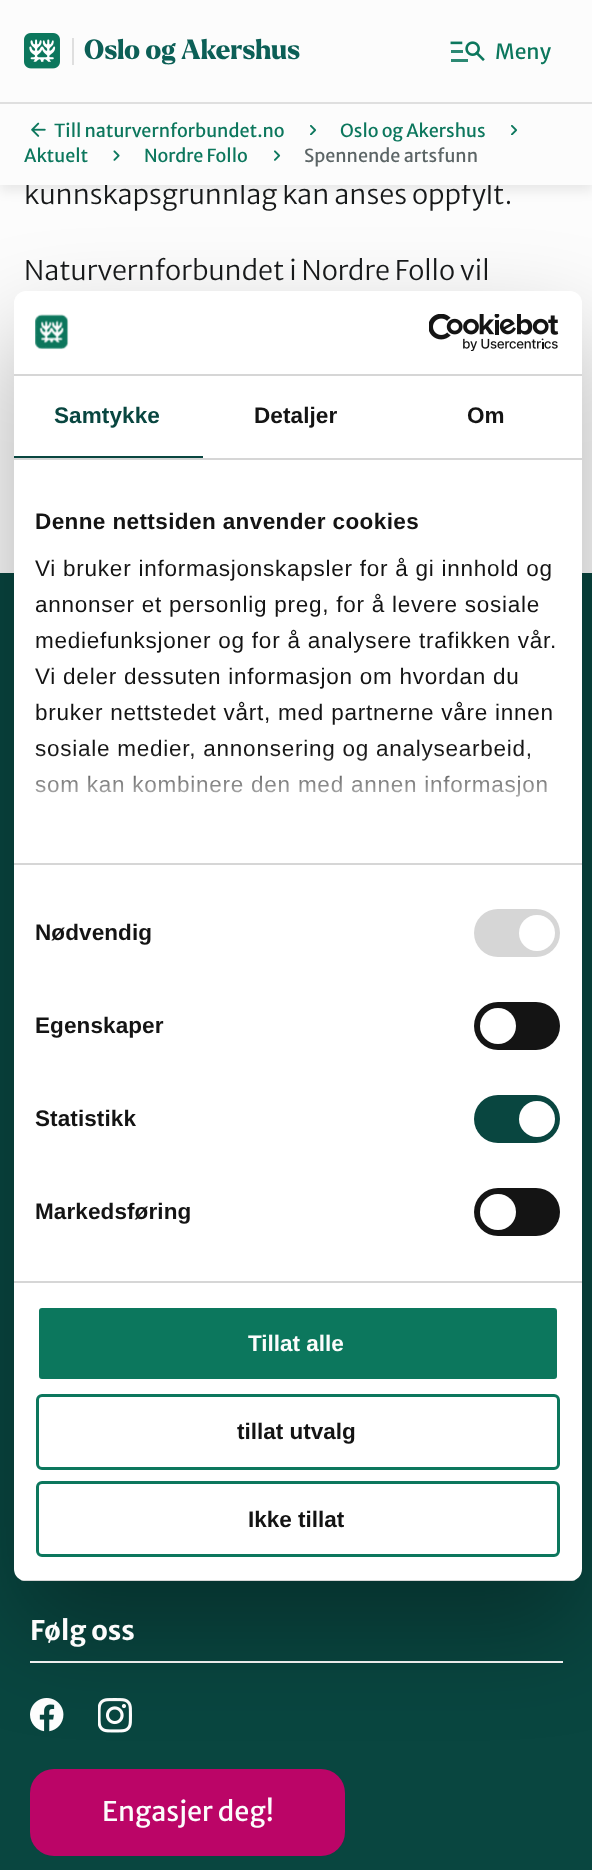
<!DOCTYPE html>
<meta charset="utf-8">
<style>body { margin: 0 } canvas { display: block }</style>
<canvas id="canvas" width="592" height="1870"></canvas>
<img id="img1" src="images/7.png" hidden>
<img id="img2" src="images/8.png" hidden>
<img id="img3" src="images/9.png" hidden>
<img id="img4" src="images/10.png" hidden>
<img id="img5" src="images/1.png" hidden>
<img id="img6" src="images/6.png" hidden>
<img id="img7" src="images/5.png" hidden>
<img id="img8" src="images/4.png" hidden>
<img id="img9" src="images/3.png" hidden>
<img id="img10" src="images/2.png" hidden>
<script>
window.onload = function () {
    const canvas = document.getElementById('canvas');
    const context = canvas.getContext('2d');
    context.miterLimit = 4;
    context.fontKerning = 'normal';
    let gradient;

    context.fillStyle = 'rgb(252, 252, 252)';
    context.fillRect(0, 0, 592, 1870);
    context.fillStyle = 'rgba(0, 0, 0, 0.08)';
    context.filter = 'blur(6px)';
    context.beginPath();
    context.rect(0, 6, 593, 185);
    context.fill();
    context.filter = 'none';
    context.fillStyle = 'rgb(9, 70, 64)';
    context.fillRect(0, 573, 592, 1297);
    context.fillStyle = 'rgb(252, 252, 252)';
    context.fillRect(30, 1661, 533, 2);
    context.drawImage(document.getElementById('img1'), 30, 1698, 34, 34);
    context.drawImage(document.getElementById('img2'), 98, 1698, 34, 35);
    context.fillStyle = 'rgb(187, 5, 103)';
    context.beginPath();
    context.roundRect(30, 1769, 315, 87, 24);
    context.fill();
    context.fillStyle = 'rgba(0, 0, 0, 0.3)';
    context.filter = 'blur(51px)';
    context.beginPath();
    context.roundRect(14, 339, 568, 1290, 12);
    context.fill();
    context.filter = 'none';
    context.fillStyle = 'rgb(255, 255, 255)';
    context.beginPath();
    context.roundRect(14, 291, 568, 1290, 12);
    context.fill();
    context.fillStyle = 'rgb(214, 214, 214)';
    context.fillRect(14, 374, 568, 2);
    context.drawImage(document.getElementById('img3'), 35, 314, 34, 36);
    context.drawImage(document.getElementById('img4'), 429, 314, 130, 37);
    context.fillRect(14, 458, 568, 2);
    context.fillStyle = 'rgb(9, 70, 64)';
    context.fillRect(14, 456, 189, 2);
    context.fillStyle = 'rgb(214, 214, 214)';
    context.fillRect(14, 863, 568, 2);
    context.fillRect(14, 1281, 568, 2);
    context.beginPath();
    context.roundRect(474, 909, 86, 48, 24);
    context.fill();
    context.fillStyle = 'rgb(255, 255, 255)';
    context.beginPath();
    context.arc(537, 933, 18, 0, 2 * Math.PI);
    context.fill();
    context.fillStyle = 'rgb(20, 20, 20)';
    context.beginPath();
    context.roundRect(474, 1002, 86, 48, 24);
    context.fill();
    context.fillStyle = 'rgb(255, 255, 255)';
    context.beginPath();
    context.arc(498, 1026, 18, 0, 2 * Math.PI);
    context.fill();
    context.fillStyle = 'rgb(9, 70, 64)';
    context.beginPath();
    context.roundRect(474, 1095, 86, 48, 24);
    context.fill();
    context.fillStyle = 'rgb(255, 255, 255)';
    context.beginPath();
    context.arc(537, 1119, 18, 0, 2 * Math.PI);
    context.fill();
    context.fillStyle = 'rgb(20, 20, 20)';
    context.beginPath();
    context.roundRect(474, 1188, 86, 48, 24);
    context.fill();
    context.fillStyle = 'rgb(255, 255, 255)';
    context.beginPath();
    context.arc(498, 1212, 18, 0, 2 * Math.PI);
    context.fill();
    context.save();
    context.beginPath();
    context.roundRect(14, 291, 568, 1290, 12);
    context.clip();
    context.fillStyle = 'rgb(214, 214, 214)';
    context.fillRect(14, 1580, 568, 1);
    context.restore();
    context.fillStyle = 'rgb(12, 119, 93)';
    context.beginPath();
    context.roundRect(37.5, 1306.5, 521, 74, 4.5);
    context.fill();
    context.strokeStyle = 'rgb(255, 255, 255)';
    context.lineWidth = 3;
    context.stroke();
    context.beginPath();
    context.roundRect(37.5, 1395.5, 521, 73, 4.5);
    context.strokeStyle = 'rgb(12, 119, 93)';
    context.stroke();
    context.beginPath();
    context.roundRect(37.5, 1482.5, 521, 73, 4.5);
    context.stroke();
    context.font = '300 27px Merriweather Sans';
    context.fillStyle = 'rgb(23, 25, 26)';
    context.fillText('kunnskapsgrunnlag kan anses oppfylt.', 24, 204);
    context.fillStyle = 'rgb(252, 252, 252)';
    context.fillRect(0, 0, 592, 185);
    context.fillStyle = 'rgb(223, 223, 223)';
    context.fillRect(72, 38, 2, 27);
    context.drawImage(document.getElementById('img5'), 24, 33, 36, 36);
    context.font = '18px Merriweather Sans';
    context.fillStyle = 'rgb(92, 101, 102)';
    context.fillText('Spennende artsfunn', 304, 162);
    context.drawImage(document.getElementById('img6'), 274, 150, 7, 11);
    context.fillStyle = 'rgb(12, 119, 93)';
    context.fillText('Nordre Follo', 144, 162);
    context.drawImage(document.getElementById('img7'), 113, 150, 7, 11);
    context.fillText('Aktuelt', 24, 162);
    context.drawImage(document.getElementById('img8'), 511, 125, 7, 10);
    context.fillText('Oslo og Akershus', 340, 137);
    context.drawImage(document.getElementById('img8'), 310, 125, 7, 10);
    context.fillText('Till naturvernforbundet.no', 54, 137);
    context.drawImage(document.getElementById('img9'), 31, 122, 15, 15);
    context.font = '21px Merriweather Sans';
    context.fillText('Meny', 495, 59);
    context.drawImage(document.getElementById('img10'), 450, 41, 35, 21);
    context.font = '800 27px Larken';
    context.fillStyle = 'rgb(12, 95, 86)';
    context.fillText('Oslo og Akershus', 84, 59);
    context.fillStyle = 'rgb(223, 223, 223)';
    context.fillRect(0, 102, 592, 2);
    context.font = '300 27px Merriweather Sans';
    context.fillStyle = 'rgb(23, 25, 26)';
    context.fillText('Naturvernforbundet i Nordre Follo vil', 24, 280);
    context.font = 'bold 27px Merriweather Sans';
    context.fillStyle = 'rgb(252, 252, 252)';
    context.fillText('Følg oss', 30, 1640);
    context.font = '27px Merriweather Sans';
    context.fillText('Engasjer deg!', 102, 1821);
    context.letterSpacing = '0.1px';
    context.font = 'bold 22.5px Liberation Sans';
    context.fillStyle = 'rgb(9, 70, 64)';
    context.fillText('Samtykke', 54, 423);
    context.fillStyle = 'rgb(20, 20, 20)';
    context.fillText('Detaljer', 254, 423);
    context.fillText('Om', 467, 423);
    context.letterSpacing = '0.4px';
    context.fillText('Denne nettsiden anvender cookies', 35, 529);
    context.letterSpacing = '0.75px';
    context.font = '22.5px Liberation Sans';
    context.fillText('Vi bruker informasjonskapsler for å gi innhold og', 35, 576);
    context.fillText('annonser et personlig preg, for å levere sosiale', 35, 612);
    context.fillText('mediefunksjoner og for å analysere trafikken vår.', 35, 648);
    context.fillText('Vi deler dessuten informasjon om hvordan du', 35, 684);
    context.fillText('bruker nettstedet vårt, med partnerne våre innen', 35, 720);
    context.fillText('sosiale medier, annonsering og analysearbeid,', 35, 756);
    context.fillText('som kan kombinere den med annen informasjon', 35, 792);
    gradient = context.createLinearGradient(287, 862, 287, 750);
    gradient.addColorStop(0, 'rgb(255, 255, 255)');
    gradient.addColorStop(0.5, 'rgba(255, 255, 255, 0.8)');
    gradient.addColorStop(1, 'rgba(255, 255, 255, 0)');
    context.fillStyle = gradient;
    context.fillRect(35, 752, 512, 45);
    context.letterSpacing = '0.1px';
    context.font = 'bold 22.5px Liberation Sans';
    context.fillStyle = 'rgb(20, 20, 20)';
    context.fillText('Nødvendig', 35, 940);
    context.fillText('Egenskaper', 35, 1033);
    context.fillText('Statistikk', 35, 1126);
    context.fillText('Markedsføring', 35, 1219);
    context.letterSpacing = '0px';
    context.fillStyle = 'rgb(252, 252, 252)';
    context.fillText('Tillat alle', 248, 1351);
    context.fillStyle = 'rgb(20, 20, 20)';
    context.fillText('tillat utvalg', 237, 1439);
    context.fillText('Ikke tillat', 248, 1527);
};
</script>
